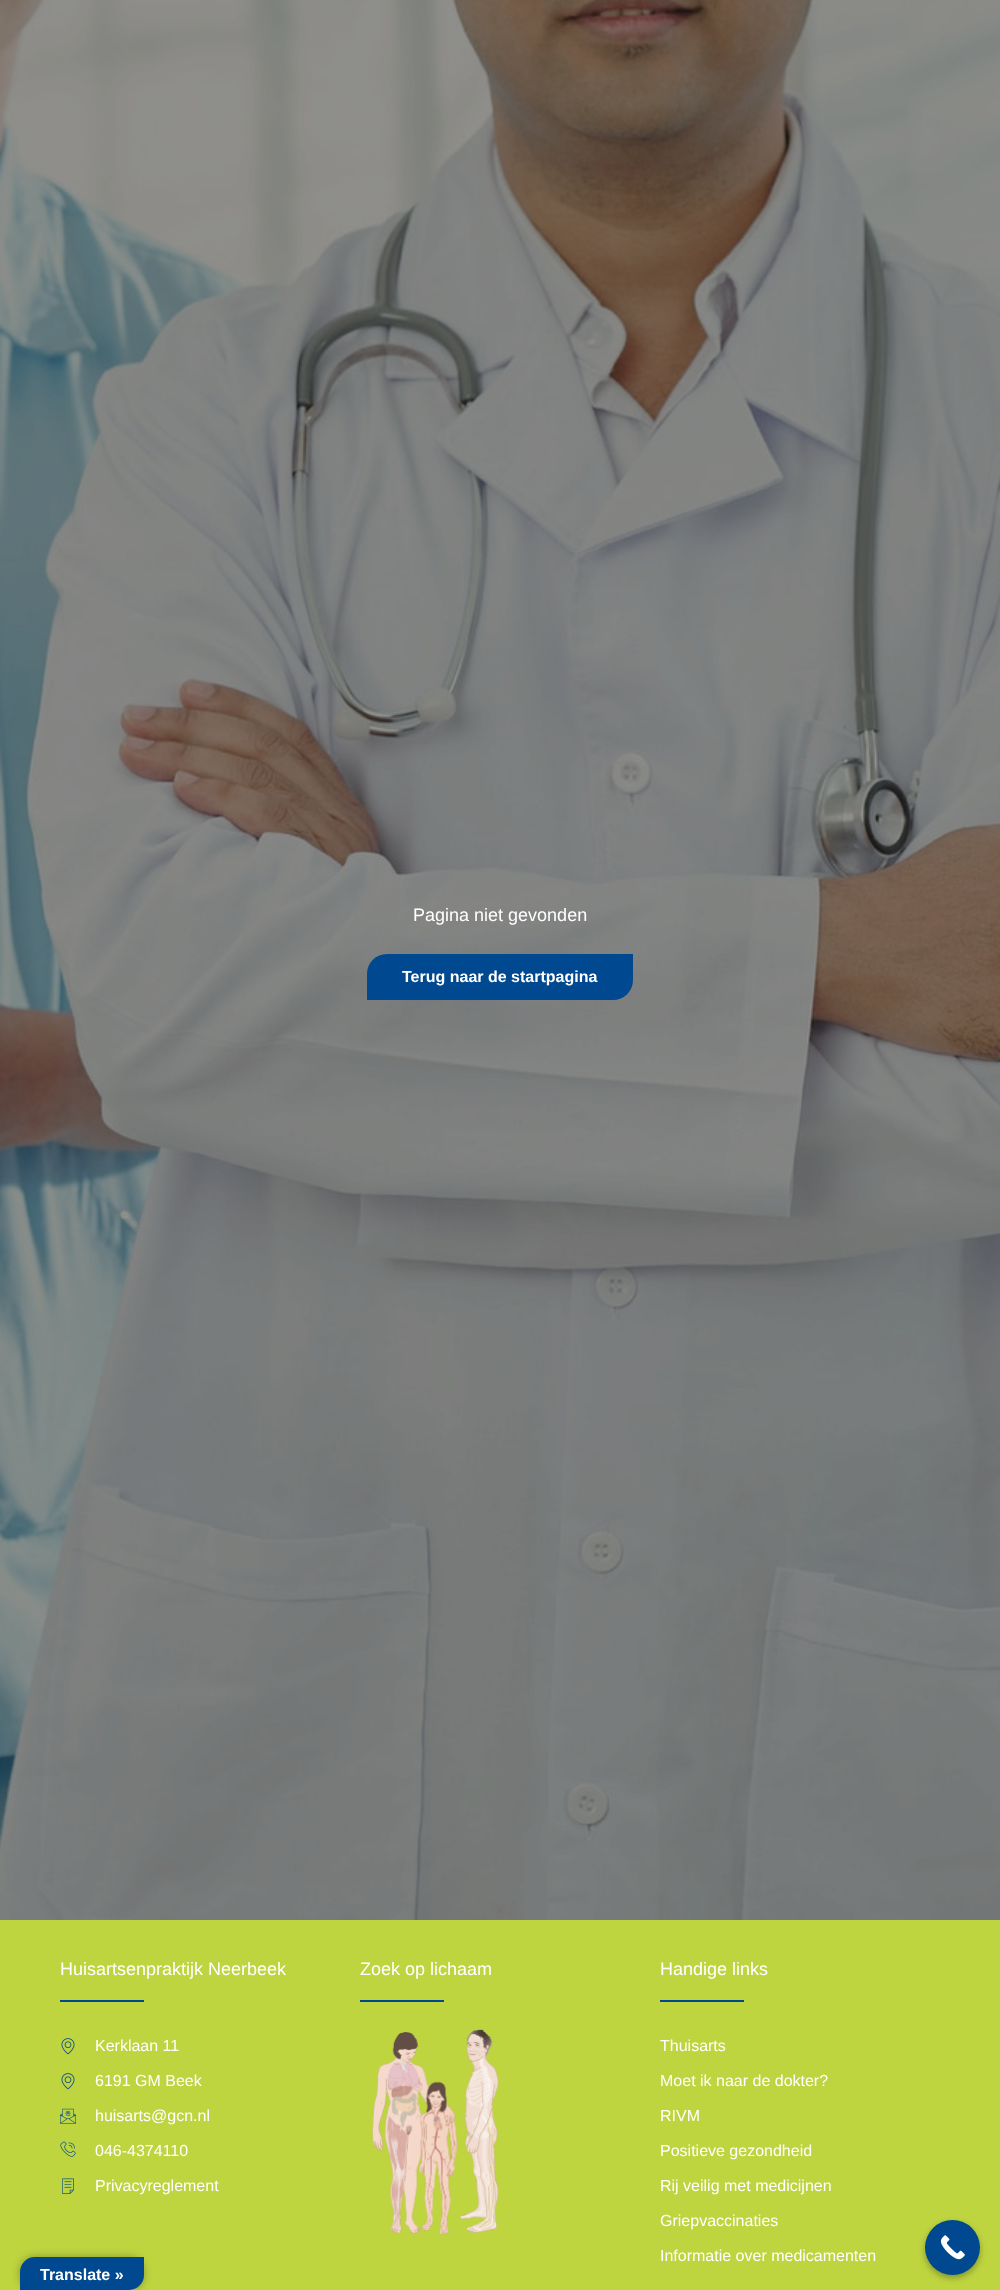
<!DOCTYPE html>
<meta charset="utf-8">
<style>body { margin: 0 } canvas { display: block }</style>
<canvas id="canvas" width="1000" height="2290"></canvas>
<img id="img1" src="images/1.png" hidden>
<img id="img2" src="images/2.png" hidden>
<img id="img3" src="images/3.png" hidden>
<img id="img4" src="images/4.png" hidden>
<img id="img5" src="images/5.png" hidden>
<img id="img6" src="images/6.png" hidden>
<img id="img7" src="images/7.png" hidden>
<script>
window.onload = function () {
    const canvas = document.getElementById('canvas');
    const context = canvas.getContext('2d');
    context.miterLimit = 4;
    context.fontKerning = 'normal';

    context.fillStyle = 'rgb(255, 255, 255)';
    context.fillRect(0, 0, 1000, 2290);
    context.drawImage(document.getElementById('img1'), 0, 0, 1000, 1920);
    context.fillStyle = 'rgb(0, 72, 143)';
    context.beginPath();
    context.roundRect(367, 954, 266, 46, [20, 0, 20, 0]);
    context.fill();
    context.fillStyle = 'rgb(190, 213, 64)';
    context.fillRect(0, 1920, 1000, 370);
    context.fillStyle = 'rgb(0, 72, 143)';
    context.fillRect(60, 2000, 84, 2);
    context.drawImage(document.getElementById('img2'), 61, 2038, 14, 17);
    context.drawImage(document.getElementById('img2'), 61, 2073, 14, 17);
    context.drawImage(document.getElementById('img3'), 60, 2108, 16, 16);
    context.drawImage(document.getElementById('img4'), 60, 2141, 16, 16);
    context.drawImage(document.getElementById('img5'), 62, 2178, 12, 16);
    context.fillRect(360, 2000, 84, 2);
    context.drawImage(document.getElementById('img6'), 372, 2029, 127, 206);
    context.fillRect(660, 2000, 84, 2);
    context.fillStyle = 'rgba(0, 0, 0, 0.3)';
    context.filter = 'blur(3px)';
    context.beginPath();
    context.roundRect(925, 2223, 55, 55, 27.5);
    context.fill();
    context.filter = 'none';
    context.fillStyle = 'rgb(0, 72, 143)';
    context.beginPath();
    context.arc(952.5, 2247.5, 27.5, 0, 2 * Math.PI);
    context.fill();
    context.drawImage(document.getElementById('img7'), 940, 2235, 25, 25);
    context.fillStyle = 'rgba(0, 0, 0, 0.3)';
    context.filter = 'blur(4.5px)';
    context.beginPath();
    context.roundRect(20, 2257, 124, 33, 15);
    context.fill();
    context.filter = 'none';
    context.fillStyle = 'rgb(0, 72, 143)';
    context.beginPath();
    context.roundRect(20, 2257, 124, 33, [15, 0, 15, 0]);
    context.fill();
    context.font = '18px Liberation Sans';
    context.fillStyle = 'rgb(255, 255, 255)';
    context.fillText('Pagina niet gevonden', 413, 921);
    context.font = 'bold 16px Liberation Sans';
    context.fillText('Terug naar de startpagina', 402, 982);
    context.font = '18px Liberation Sans';
    context.fillText('Huisartsenpraktijk Neerbeek', 60, 1975);
    context.font = '16px Liberation Sans';
    context.fillText('Kerklaan 11', 95, 2051);
    context.fillText('6191 GM Beek', 95, 2086);
    context.fillText('huisarts@gcn.nl', 95, 2121);
    context.fillText('046-4374110', 95, 2156);
    context.fillText('Privacyreglement', 95, 2191);
    context.font = '18px Liberation Sans';
    context.fillText('Zoek op lichaam', 360, 1975);
    context.fillText('Handige links', 660, 1975);
    context.font = '16px Liberation Sans';
    context.fillText('Thuisarts', 660, 2051);
    context.fillText('Moet ik naar de dokter?', 660, 2086);
    context.fillText('RIVM', 660, 2121);
    context.fillText('Positieve gezondheid', 660, 2156);
    context.fillText('Rij veilig met medicijnen', 660, 2191);
    context.fillText('Griepvaccinaties', 660, 2226);
    context.fillText('Informatie over medicamenten', 660, 2261);
    context.font = 'bold 16px Liberation Sans';
    context.fillText('Translate »', 40, 2280);
};
</script>
